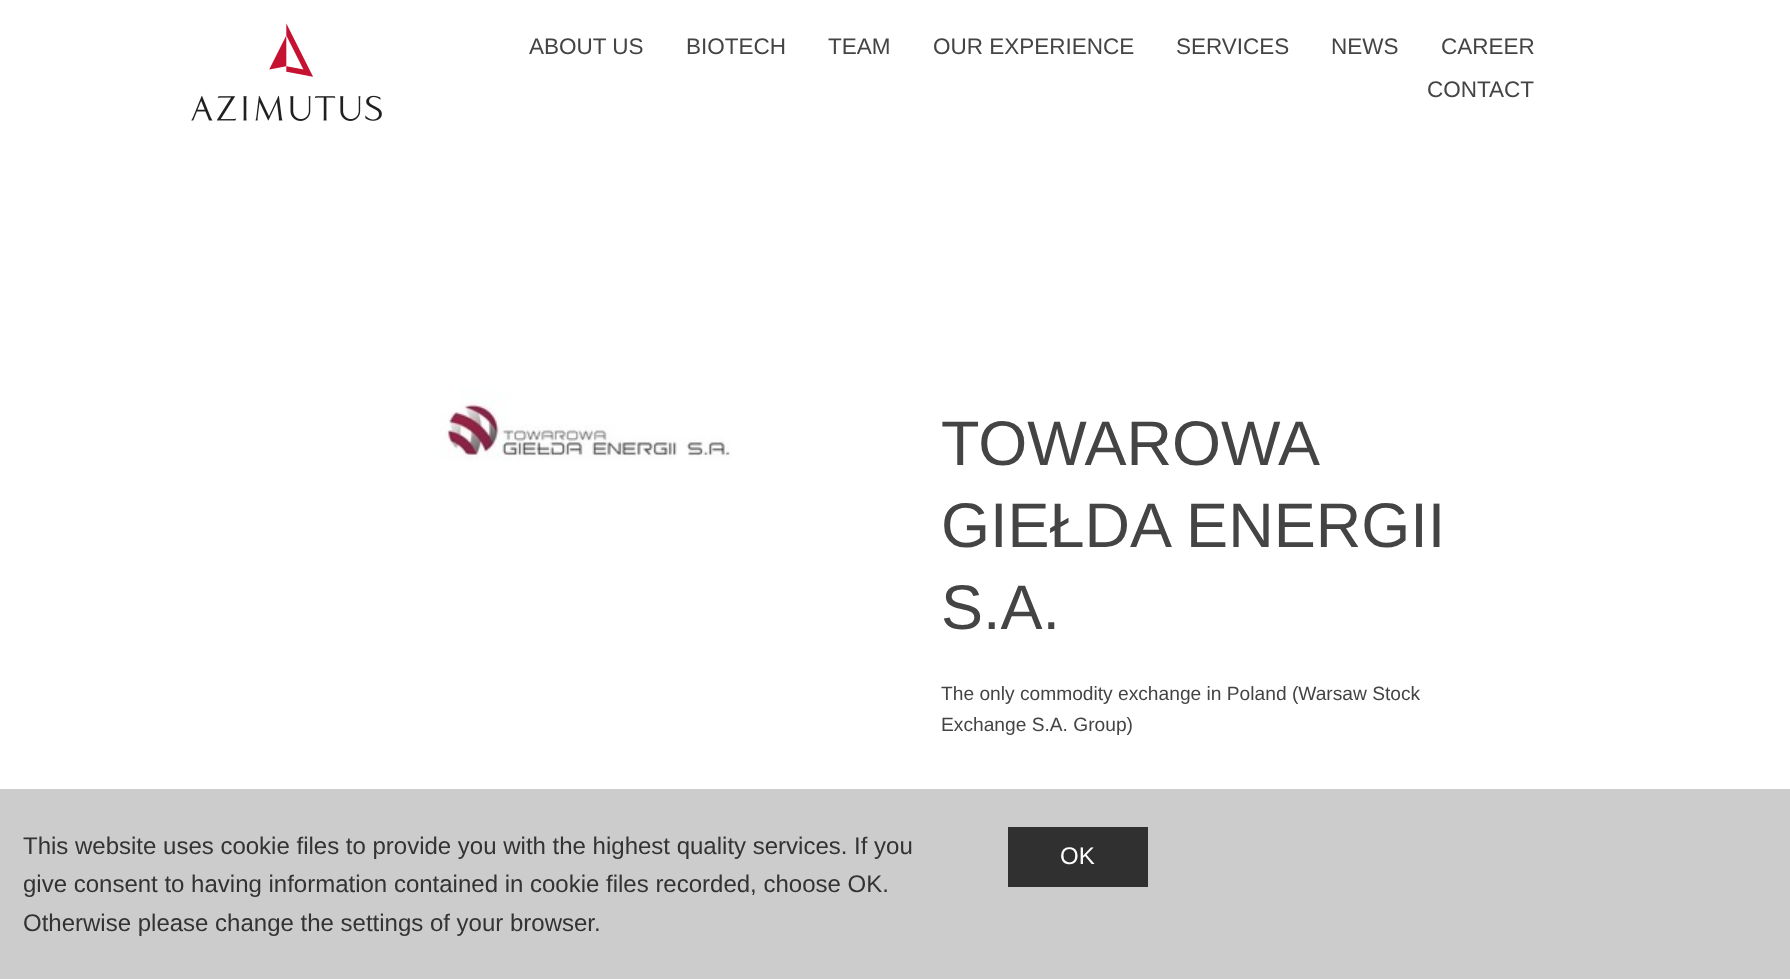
<!DOCTYPE html>
<meta charset="utf-8">
<style>body { margin: 0 } canvas { display: block }</style>
<canvas id="canvas" width="1790" height="979"></canvas>
<img id="img1" src="images/1.png" hidden>
<img id="img2" src="images/2.png" hidden>
<script>
window.onload = function () {
    const canvas = document.getElementById('canvas');
    const context = canvas.getContext('2d');
    context.miterLimit = 4;
    context.fontKerning = 'normal';

    context.fillStyle = 'rgb(255, 255, 255)';
    context.fillRect(0, 0, 1790, 979);
    context.drawImage(document.getElementById('img1'), 191, 23, 191, 98);
    context.drawImage(document.getElementById('img2'), 439, 388, 293, 73);
    context.fillStyle = 'rgb(204, 204, 204)';
    context.fillRect(0, 789, 1790, 190);
    context.fillStyle = 'rgb(48, 48, 48)';
    context.fillRect(1008, 827, 140, 60);
    context.font = '22.5px Liberation Sans';
    context.fillStyle = 'rgb(68, 68, 68)';
    context.fillText('ABOUT US', 529, 54);
    context.fillText('BIOTECH', 686, 54);
    context.fillText('TEAM', 828, 54);
    context.fillText('OUR EXPERIENCE', 933, 54);
    context.fillText('SERVICES', 1176, 54);
    context.fillText('NEWS', 1331, 54);
    context.fillText('CAREER', 1441, 54);
    context.fillText('CONTACT', 1427, 97);
    context.font = '63px Liberation Sans';
    context.fillText('TOWAROWA', 941, 465);
    context.fillText('GIEŁDA ENERGII', 941, 547);
    context.fillText('S.A.', 941, 629);
    context.font = '19.2px Liberation Sans';
    context.fillText('The only commodity exchange in Poland (Warsaw Stock', 941, 700);
    context.fillText('Exchange S.A. Group)', 941, 731);
    context.font = '24px Liberation Sans';
    context.fillStyle = 'rgb(51, 51, 51)';
    context.fillText('This website uses cookie files to provide you with the highest quality services. If you', 23, 854);
    context.fillText('give consent to having information contained in cookie files recorded, choose OK.', 23, 892);
    context.fillText('Otherwise please change the settings of your browser.', 23, 931);
    context.fillStyle = 'rgb(255, 255, 255)';
    context.fillText('OK', 1060, 864);
};
</script>
